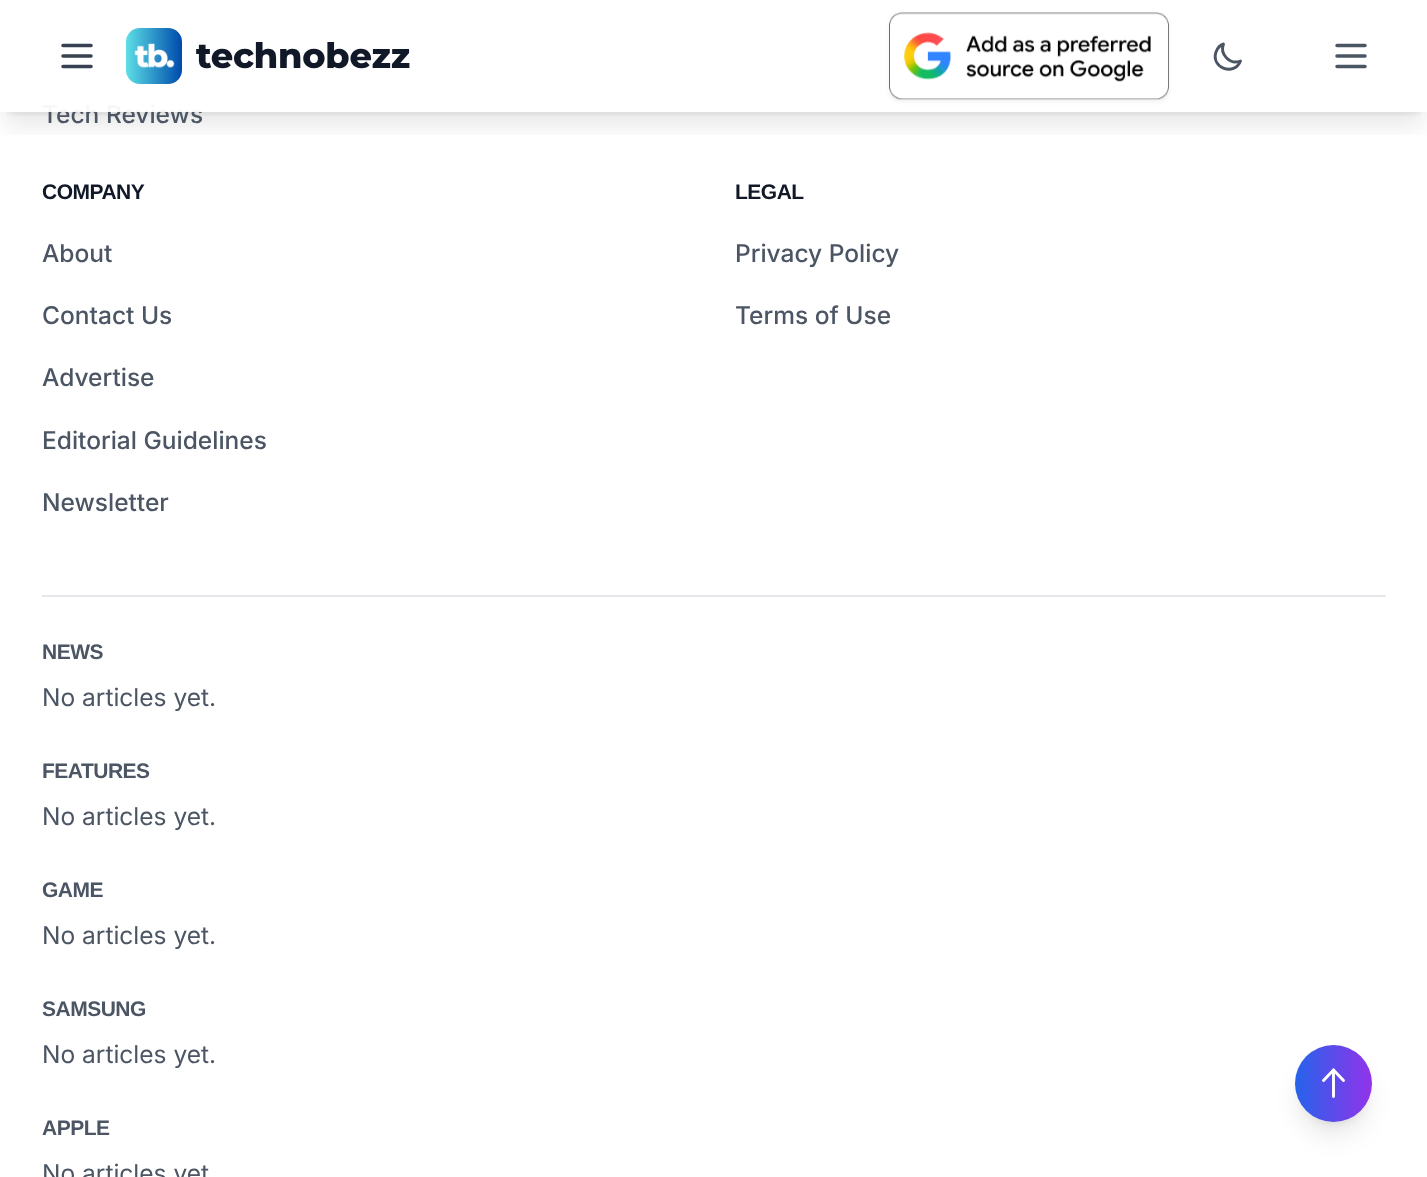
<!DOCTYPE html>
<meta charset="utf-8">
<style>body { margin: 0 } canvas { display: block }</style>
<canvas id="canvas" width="1427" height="1177"></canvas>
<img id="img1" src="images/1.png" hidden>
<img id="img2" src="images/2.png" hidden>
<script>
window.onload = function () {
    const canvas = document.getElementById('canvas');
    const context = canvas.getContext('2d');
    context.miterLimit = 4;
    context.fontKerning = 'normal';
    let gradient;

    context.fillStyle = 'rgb(255, 255, 255)';
    context.fillRect(0, 0, 1427, 1177);
    context.save();
    context.beginPath();
    context.rect(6, 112, 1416, 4);
    context.clip();
    context.fillStyle = 'rgba(0, 0, 0, 0.1)';
    context.filter = 'blur(5px)';
    context.beginPath();
    context.rect(7, 14, 1414, 98);
    context.fill();
    context.filter = 'none';
    context.restore();
    context.save();
    context.beginPath();
    context.rect(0, 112, 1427, 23);
    context.clip();
    context.fillStyle = 'rgba(0, 0, 0, 0.1)';
    context.filter = 'blur(13px)';
    context.beginPath();
    context.rect(5, 23, 1418, 101);
    context.fill();
    context.filter = 'none';
    context.restore();
    context.beginPath();
    context.moveTo(63, 45.5);
    context.lineTo(91, 45.5);
    context.moveTo(63, 56);
    context.lineTo(91, 56);
    context.moveTo(63, 66.5);
    context.lineTo(91, 66.5);
    context.strokeStyle = 'rgb(55, 65, 81)';
    context.lineWidth = 3.5;
    context.lineCap = 'round';
    context.lineJoin = 'round';
    context.stroke();
    context.drawImage(document.getElementById('img1'), 126, 28, 56, 56);
    context.fillStyle = 'rgba(0, 0, 0, 0.05)';
    context.filter = 'blur(2px)';
    context.beginPath();
    context.roundRect(889, 14, 280, 88, 11);
    context.fill();
    context.filter = 'none';
    context.drawImage(document.getElementById('img2'), 889, 12, 280, 88);
    context.beginPath();
    context.moveTo(1240.5, 61);
    context.bezierCurveTo(1230, 65, 1219.5, 54.5, 1223.5, 44);
    context.bezierCurveTo(1220, 45, 1217.5, 48, 1216, 52);
    context.bezierCurveTo(1210.5, 68, 1234.5, 76.5, 1240.5, 61);
    context.closePath();
    context.strokeStyle = 'rgb(75, 85, 99)';
    context.lineWidth = 2.9;
    context.stroke();
    context.beginPath();
    context.moveTo(1337, 45.5);
    context.lineTo(1365, 45.5);
    context.moveTo(1337, 56);
    context.lineTo(1365, 56);
    context.moveTo(1337, 66.5);
    context.lineTo(1365, 66.5);
    context.lineWidth = 3.5;
    context.stroke();
    context.fillStyle = 'rgb(229, 231, 235)';
    context.fillRect(42, 595, 1344, 2);
    context.fillStyle = 'rgba(0, 0, 0, 0.1)';
    context.filter = 'blur(5px)';
    context.beginPath();
    context.roundRect(1302, 1059, 63, 63, 31.5);
    context.fill();
    context.filter = 'none';
    context.filter = 'blur(13px)';
    context.beginPath();
    context.roundRect(1300, 1068, 67, 66, 33);
    context.fill();
    context.filter = 'none';
    gradient = context.createLinearGradient(1295, 1083, 1372, 1083);
    gradient.addColorStop(0, 'rgb(37, 99, 235)');
    gradient.addColorStop(1, 'rgb(147, 51, 234)');
    context.fillStyle = gradient;
    context.beginPath();
    context.arc(1333.5, 1083.5, 38.5, 0, 2 * Math.PI);
    context.fill();
    context.beginPath();
    context.moveTo(1323.5, 1080.5);
    context.lineTo(1333.5, 1070);
    context.moveTo(1333.5, 1070);
    context.lineTo(1343.5, 1080.5);
    context.moveTo(1333.5, 1070);
    context.lineTo(1333.5, 1096.5);
    context.strokeStyle = 'rgb(255, 255, 255)';
    context.lineWidth = 2.9;
    context.stroke();
    context.letterSpacing = '-0.25px';
    context.font = '800 35px Montserrat';
    context.fillStyle = 'rgb(17, 24, 39)';
    context.fillText('technobezz', 196, 68);
    context.letterSpacing = '0px';
    context.font = '500 24.5px Inter';
    context.fillStyle = 'rgb(75, 85, 99)';
    context.fillText('Tech Reviews', 42, 123);
    context.fillStyle = 'rgba(255, 255, 255, 0.95)';
    context.fillRect(43, 104, 159, 8);
    context.letterSpacing = '-0.5px';
    context.font = 'bold 21px Liberation Sans';
    context.fillStyle = 'rgb(17, 24, 39)';
    context.fillText('COMPANY', 42, 199);
    context.letterSpacing = '0px';
    context.font = '500 24.5px Inter';
    context.fillStyle = 'rgb(75, 85, 99)';
    context.fillText('About', 42, 262);
    context.fillText('Contact Us', 42, 324);
    context.fillText('Advertise', 42, 386);
    context.fillText('Editorial Guidelines', 42, 449);
    context.fillText('Newsletter', 42, 511);
    context.letterSpacing = '-0.5px';
    context.font = 'bold 21px Liberation Sans';
    context.fillStyle = 'rgb(17, 24, 39)';
    context.fillText('LEGAL', 735, 199);
    context.letterSpacing = '0px';
    context.font = '500 24.5px Inter';
    context.fillStyle = 'rgb(75, 85, 99)';
    context.fillText('Privacy Policy', 735, 262);
    context.fillText('Terms of Use', 735, 324);
    context.letterSpacing = '-0.5px';
    context.font = 'bold 21px Liberation Sans';
    context.fillText('NEWS', 42, 659);
    context.letterSpacing = '0px';
    context.font = '24.5px Inter';
    context.fillText('No articles yet.', 42, 706);
    context.letterSpacing = '-0.5px';
    context.font = 'bold 21px Liberation Sans';
    context.fillText('FEATURES', 42, 778);
    context.letterSpacing = '0px';
    context.font = '24.5px Inter';
    context.fillText('No articles yet.', 42, 825);
    context.letterSpacing = '-0.5px';
    context.font = 'bold 21px Liberation Sans';
    context.fillText('GAME', 42, 897);
    context.letterSpacing = '0px';
    context.font = '24.5px Inter';
    context.fillText('No articles yet.', 42, 944);
    context.letterSpacing = '-0.5px';
    context.font = 'bold 21px Liberation Sans';
    context.fillText('SAMSUNG', 42, 1016);
    context.letterSpacing = '0px';
    context.font = '24.5px Inter';
    context.fillText('No articles yet.', 42, 1063);
    context.letterSpacing = '-0.5px';
    context.font = 'bold 21px Liberation Sans';
    context.fillText('APPLE', 42, 1135);
    context.letterSpacing = '0px';
    context.font = '24.5px Inter';
    context.fillText('No articles yet', 42, 1182);
};
</script>
